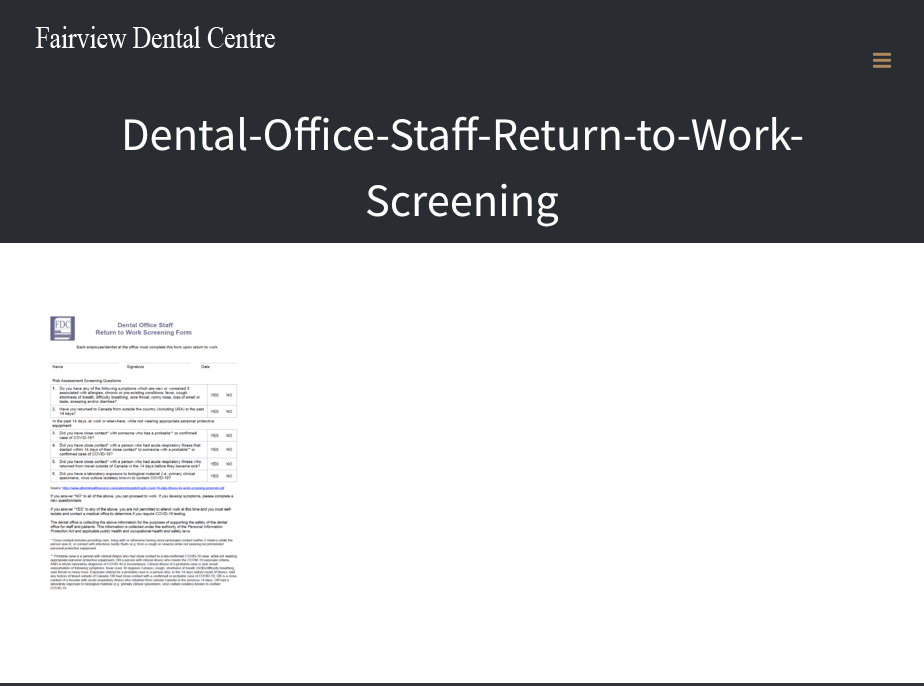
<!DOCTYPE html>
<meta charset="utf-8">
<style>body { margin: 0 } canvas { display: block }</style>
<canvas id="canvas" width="924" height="686"></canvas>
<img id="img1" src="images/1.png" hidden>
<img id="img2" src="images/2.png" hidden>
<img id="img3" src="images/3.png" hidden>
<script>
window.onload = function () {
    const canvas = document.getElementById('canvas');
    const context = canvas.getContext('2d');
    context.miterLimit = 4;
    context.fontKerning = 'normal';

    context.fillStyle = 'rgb(255, 255, 255)';
    context.fillRect(0, 0, 924, 686);
    context.fillStyle = 'rgb(41, 44, 48)';
    context.fillRect(0, 0, 924, 243);
    context.drawImage(document.getElementById('img1'), 35, 26, 240, 22);
    context.drawImage(document.getElementById('img2'), 873, 52, 18, 16);
    context.drawImage(document.getElementById('img3'), 50, 316, 188, 274);
    context.fillStyle = 'rgb(49, 53, 57)';
    context.fillRect(0, 683, 924, 3);
    context.font = '46.5px Source Sans Pro';
    context.fillStyle = 'rgb(255, 255, 255)';
    context.fillText('Dental-Office-Staff-Return-to-Work-', 121, 150);
    context.fillText('Screening', 365, 216);
};
</script>
